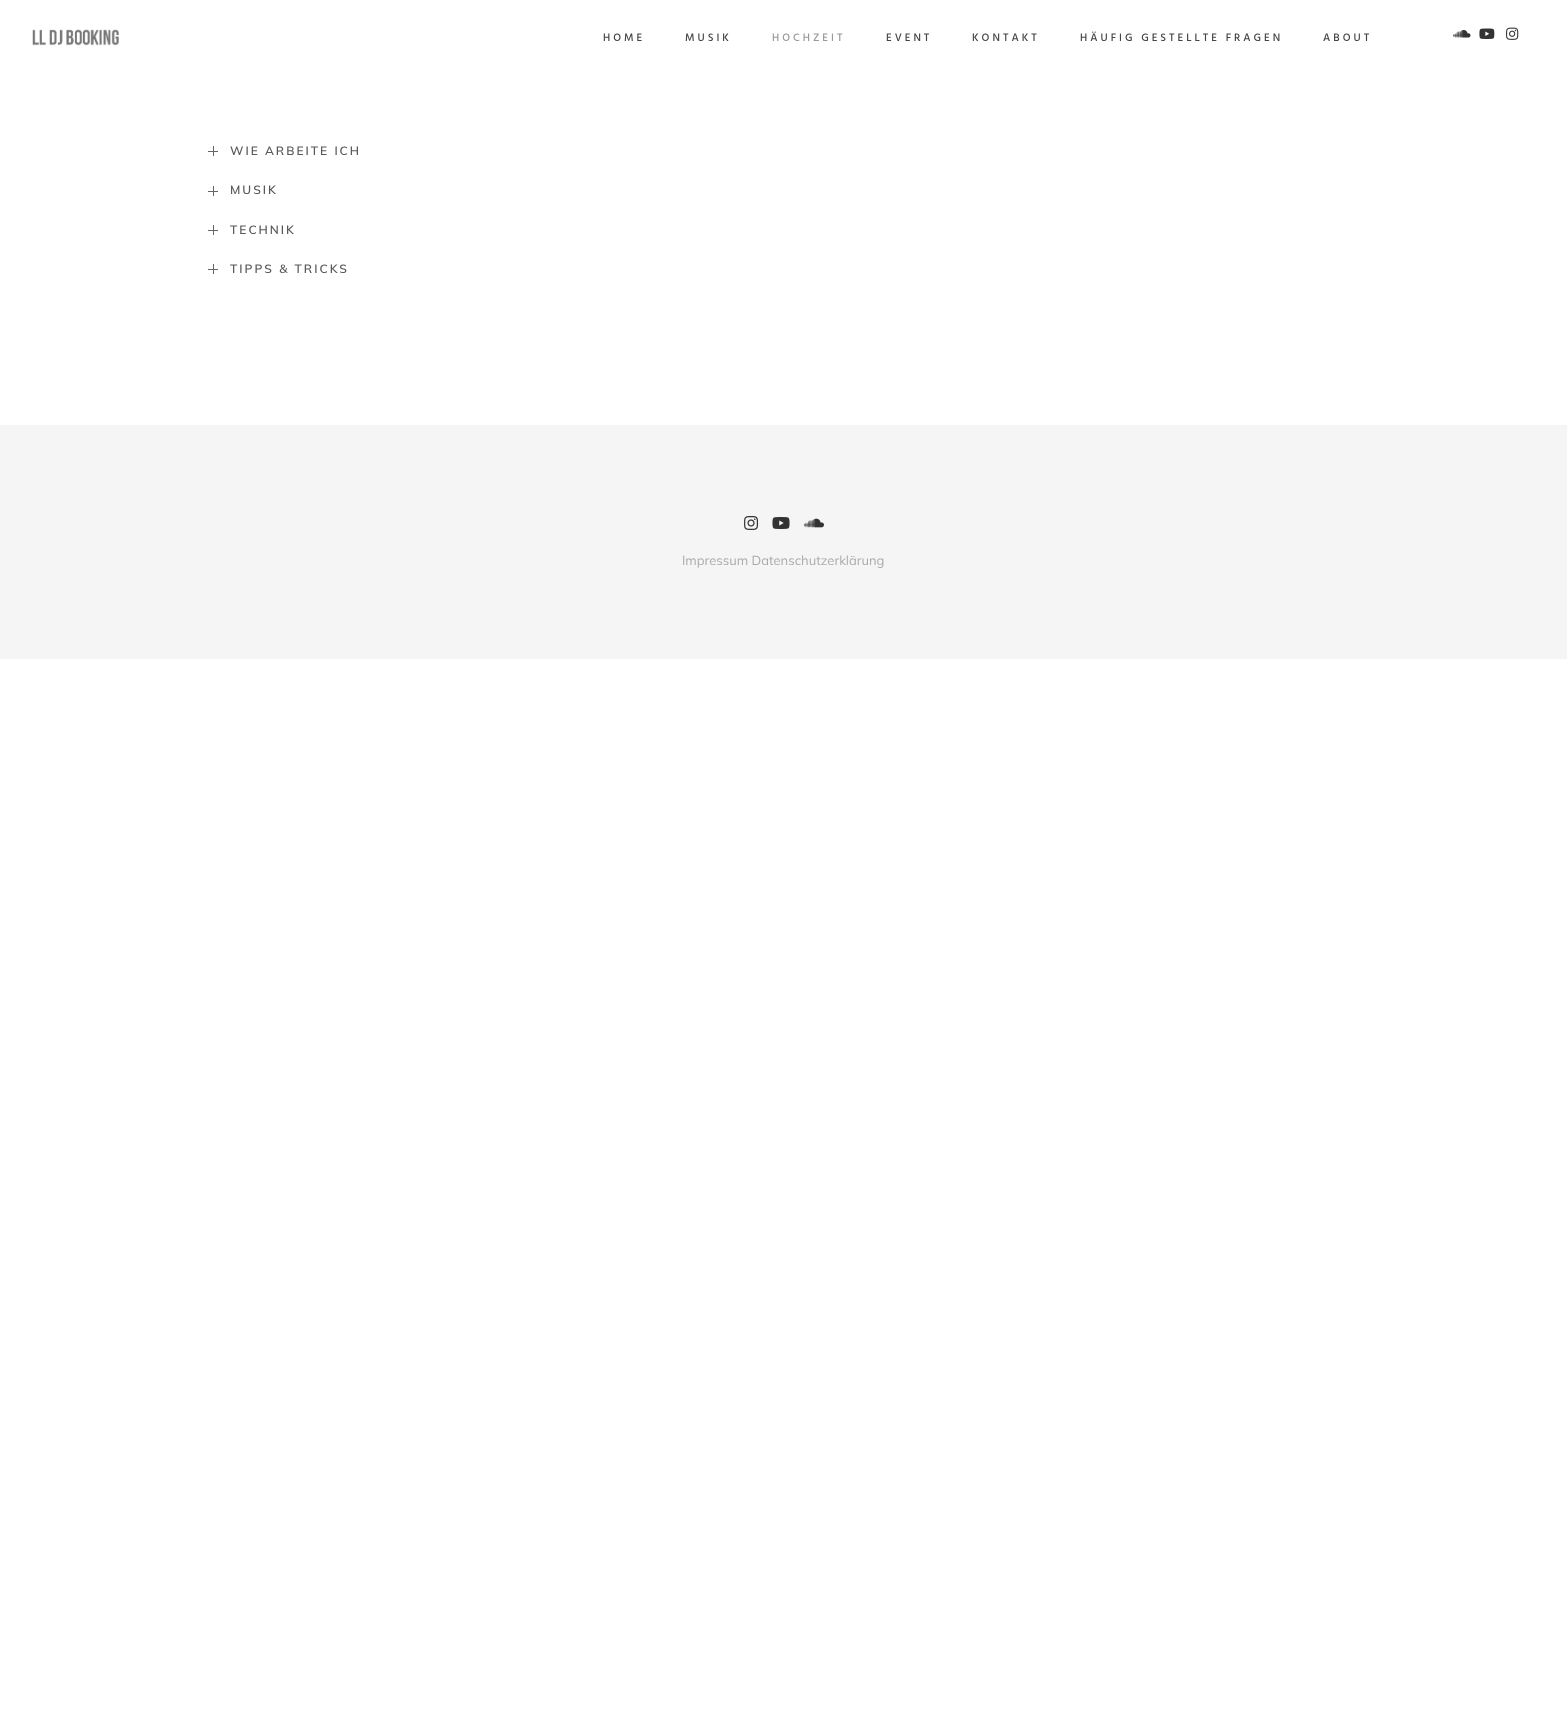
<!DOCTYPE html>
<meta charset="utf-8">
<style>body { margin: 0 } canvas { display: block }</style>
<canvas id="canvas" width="1567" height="1713"></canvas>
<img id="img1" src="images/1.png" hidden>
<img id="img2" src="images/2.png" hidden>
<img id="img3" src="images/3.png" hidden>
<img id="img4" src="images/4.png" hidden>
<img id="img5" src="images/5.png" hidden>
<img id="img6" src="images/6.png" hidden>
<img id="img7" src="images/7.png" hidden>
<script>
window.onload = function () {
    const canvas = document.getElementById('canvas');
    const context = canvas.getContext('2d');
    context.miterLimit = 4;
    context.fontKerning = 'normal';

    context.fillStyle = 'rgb(255, 255, 255)';
    context.fillRect(0, 0, 1567, 1713);
    context.drawImage(document.getElementById('img1'), 32, 29, 87, 17);
    context.drawImage(document.getElementById('img2'), 1453, 30, 18, 8);
    context.drawImage(document.getElementById('img3'), 1479, 28, 16, 11);
    context.drawImage(document.getElementById('img4'), 1506, 27, 13, 13);
    context.fillStyle = 'rgb(101, 101, 101)';
    context.fillRect(208, 151, 10, 1);
    context.fillRect(213, 146, 1, 10);
    context.fillRect(208, 191, 10, 1);
    context.fillRect(213, 186, 1, 10);
    context.fillRect(208, 230, 10, 1);
    context.fillRect(213, 225, 1, 10);
    context.fillRect(208, 269, 10, 1);
    context.fillRect(213, 264, 1, 10);
    context.fillStyle = 'rgb(245, 245, 245)';
    context.fillRect(0, 425, 1567, 234);
    context.drawImage(document.getElementById('img5'), 744, 516, 14, 14);
    context.drawImage(document.getElementById('img6'), 772, 517, 18, 12);
    context.drawImage(document.getElementById('img7'), 804, 518, 20, 10);
    context.letterSpacing = '3px';
    context.font = '500 11px Hind';
    context.fillStyle = 'rgb(68, 68, 68)';
    context.fillText('HOME', 603, 41);
    context.fillText('MUSIK', 685, 41);
    context.fillStyle = 'rgb(153, 153, 153)';
    context.fillText('HOCHZEIT', 772, 41);
    context.fillStyle = 'rgb(68, 68, 68)';
    context.fillText('EVENT', 886, 41);
    context.fillText('KONTAKT', 972, 41);
    context.fillText('HÄUFIG GESTELLTE FRAGEN', 1080, 41);
    context.fillText('ABOUT', 1323, 41);
    context.letterSpacing = '2px';
    context.font = '600 12px Mulish';
    context.fillStyle = 'rgb(89, 89, 89)';
    context.fillText('WIE ARBEITE ICH', 230, 155);
    context.fillText('MUSIK', 230, 194);
    context.fillText('TECHNIK', 230, 234);
    context.fillText('TIPPS & TRICKS', 230, 273);
    context.letterSpacing = '0px';
    context.font = '13px Mulish';
    context.fillStyle = 'rgb(171, 171, 171)';
    context.fillText('Impressum Datenschutzerklärung', 682, 565);
};
</script>
